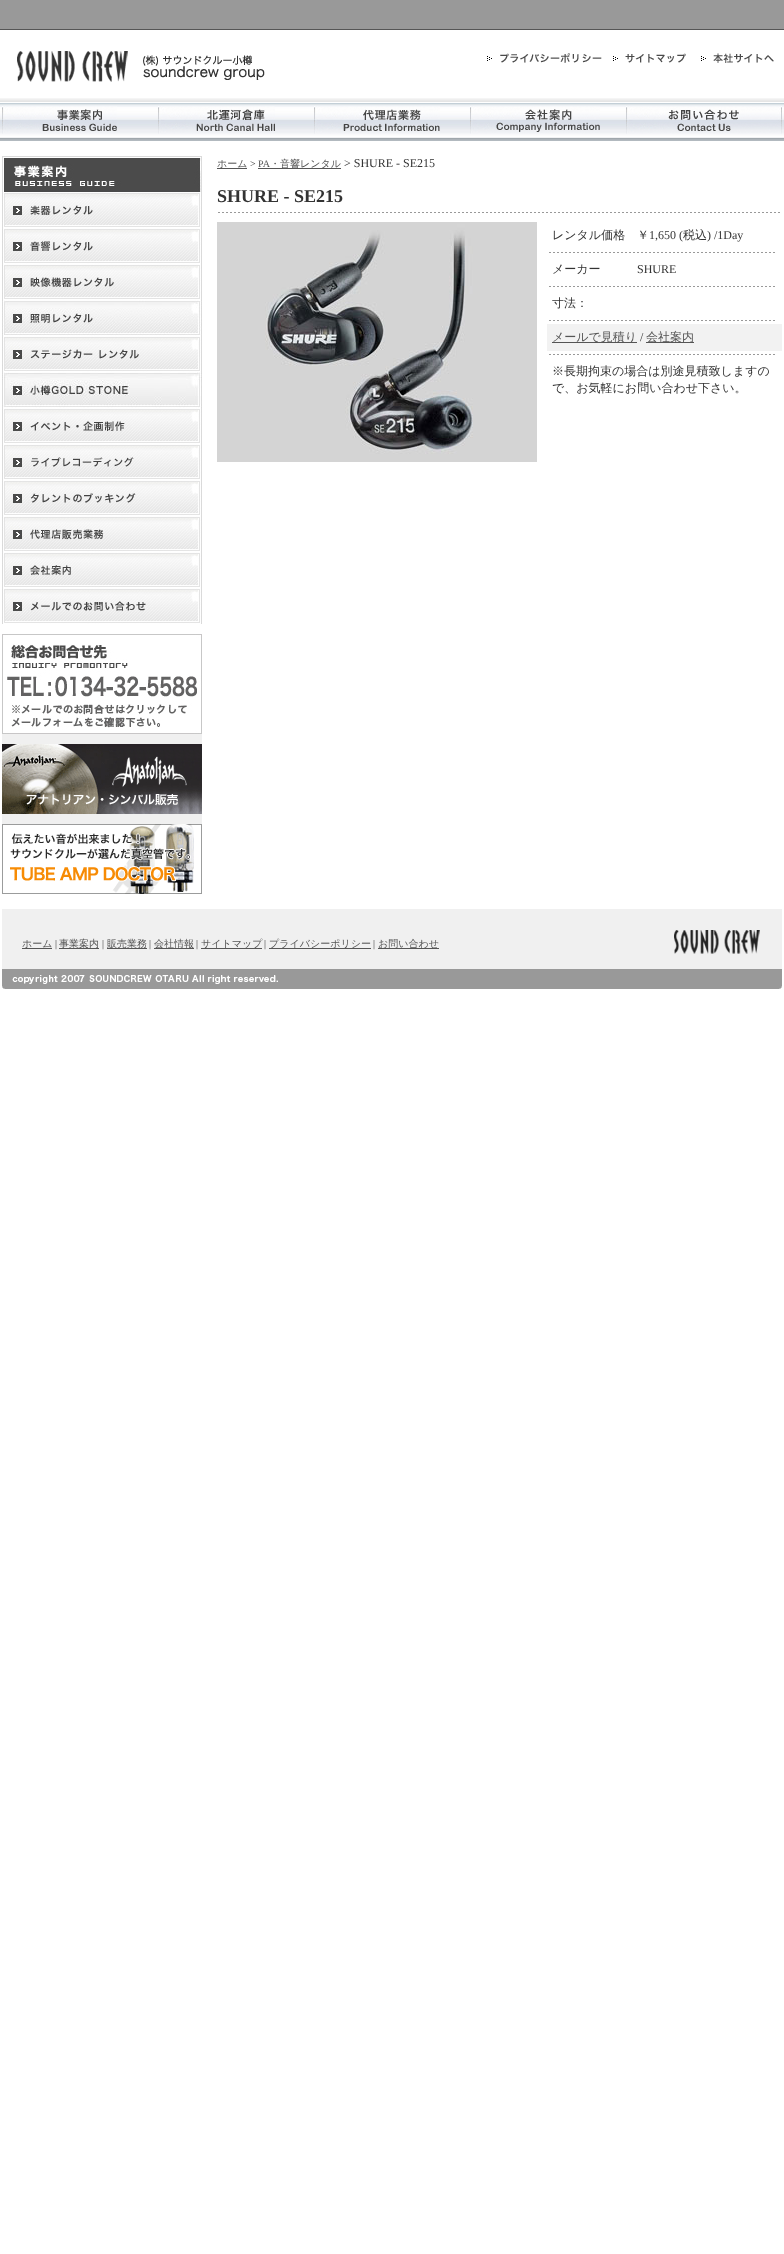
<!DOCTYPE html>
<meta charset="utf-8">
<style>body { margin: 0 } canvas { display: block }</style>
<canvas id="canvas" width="784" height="2254"></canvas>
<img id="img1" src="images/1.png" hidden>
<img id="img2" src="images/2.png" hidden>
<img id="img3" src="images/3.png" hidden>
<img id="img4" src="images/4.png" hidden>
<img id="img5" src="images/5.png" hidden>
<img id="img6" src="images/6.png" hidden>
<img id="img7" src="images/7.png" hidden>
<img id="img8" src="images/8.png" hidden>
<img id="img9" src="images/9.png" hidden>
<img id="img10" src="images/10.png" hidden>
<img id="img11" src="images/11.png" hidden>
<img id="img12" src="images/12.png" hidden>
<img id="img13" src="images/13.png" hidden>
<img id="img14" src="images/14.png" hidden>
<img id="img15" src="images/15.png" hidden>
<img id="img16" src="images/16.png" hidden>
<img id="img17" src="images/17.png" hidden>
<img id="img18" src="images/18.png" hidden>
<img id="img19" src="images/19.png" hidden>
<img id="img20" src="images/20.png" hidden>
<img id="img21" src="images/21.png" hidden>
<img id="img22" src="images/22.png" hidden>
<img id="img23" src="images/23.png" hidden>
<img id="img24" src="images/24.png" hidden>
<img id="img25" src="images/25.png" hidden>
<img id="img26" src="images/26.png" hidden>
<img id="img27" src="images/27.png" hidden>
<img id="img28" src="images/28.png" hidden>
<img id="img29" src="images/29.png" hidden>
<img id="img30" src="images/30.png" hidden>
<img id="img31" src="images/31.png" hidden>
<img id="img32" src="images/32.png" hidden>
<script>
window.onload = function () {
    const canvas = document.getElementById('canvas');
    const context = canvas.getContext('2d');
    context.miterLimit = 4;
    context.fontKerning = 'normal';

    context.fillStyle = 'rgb(255, 255, 255)';
    context.fillRect(0, 0, 784, 2254);
    context.fillStyle = 'rgb(153, 153, 153)';
    context.fillRect(0, 0, 784, 29);
    context.fillStyle = 'rgb(85, 85, 85)';
    context.fillRect(0, 29, 784, 1);
    context.drawImage(document.getElementById('img1'), 17, 51, 248, 31);
    context.drawImage(document.getElementById('img2'), 487, 53, 115, 10);
    context.drawImage(document.getElementById('img3'), 613, 53, 73, 10);
    context.drawImage(document.getElementById('img4'), 701, 53, 73, 10);
    context.drawImage(document.getElementById('img5'), 0, 98, 784, 4);
    context.drawImage(document.getElementById('img6'), 0, 103, 784, 38);
    context.drawImage(document.getElementById('img7'), 2, 106, 115, 28);
    context.drawImage(document.getElementById('img8'), 158, 106, 117, 28);
    context.drawImage(document.getElementById('img9'), 314, 106, 126, 28);
    context.drawImage(document.getElementById('img10'), 470, 106, 130, 28);
    context.drawImage(document.getElementById('img11'), 626, 106, 156, 28);
    context.drawImage(document.getElementById('img12'), 2, 156, 200, 36);
    context.drawImage(document.getElementById('img13'), 2, 192, 200, 36);
    context.drawImage(document.getElementById('img14'), 2, 228, 200, 36);
    context.drawImage(document.getElementById('img15'), 2, 264, 200, 36);
    context.drawImage(document.getElementById('img16'), 2, 300, 200, 36);
    context.drawImage(document.getElementById('img17'), 2, 336, 200, 36);
    context.drawImage(document.getElementById('img18'), 2, 372, 200, 36);
    context.drawImage(document.getElementById('img19'), 2, 408, 200, 36);
    context.drawImage(document.getElementById('img20'), 2, 444, 200, 36);
    context.drawImage(document.getElementById('img21'), 2, 480, 200, 36);
    context.drawImage(document.getElementById('img22'), 2, 516, 200, 36);
    context.drawImage(document.getElementById('img23'), 2, 552, 200, 36);
    context.drawImage(document.getElementById('img24'), 2, 588, 200, 36);
    context.drawImage(document.getElementById('img25'), 2, 634, 200, 100);
    context.fillStyle = 'rgb(240, 240, 240)';
    context.fillRect(2, 734, 200, 90);
    context.drawImage(document.getElementById('img26'), 2, 744, 200, 70);
    context.drawImage(document.getElementById('img27'), 2, 824, 200, 70);
    context.fillStyle = 'rgb(85, 85, 85)';
    context.fillRect(217, 168, 30, 1);
    context.fillRect(258, 168, 83, 1);
    context.drawImage(document.getElementById('img28'), 218, 212, 562, 1);
    context.drawImage(document.getElementById('img29'), 217, 222, 320, 240);
    context.drawImage(document.getElementById('img30'), 549, 252, 226, 1);
    context.drawImage(document.getElementById('img30'), 549, 286, 226, 1);
    context.drawImage(document.getElementById('img30'), 549, 320, 226, 1);
    context.fillStyle = 'rgb(242, 242, 242)';
    context.fillRect(547, 324, 235, 27);
    context.fillStyle = 'rgb(85, 85, 85)';
    context.fillRect(552, 342, 85, 1);
    context.fillRect(646, 342, 48, 1);
    context.drawImage(document.getElementById('img30'), 549, 354, 226, 1);
    context.fillStyle = 'rgb(240, 240, 240)';
    context.fillRect(2, 909, 780, 60);
    context.fillStyle = 'rgb(85, 85, 85)';
    context.fillRect(22, 948, 30, 1);
    context.fillRect(59, 948, 40, 1);
    context.fillRect(107, 948, 40, 1);
    context.fillRect(154, 948, 40, 1);
    context.fillRect(201, 948, 61, 1);
    context.fillRect(269, 948, 102, 1);
    context.fillRect(378, 948, 61, 1);
    context.drawImage(document.getElementById('img31'), 674, 930, 86, 24);
    context.drawImage(document.getElementById('img32'), 2, 969, 780, 20);
    context.font = '500 10px WenQuanYi Zen Hei';
    context.fillText('ホーム', 217, 167);
    context.font = '10px Liberation Serif';
    context.fillStyle = 'rgb(51, 51, 51)';
    context.fillText('>', 250, 167);
    context.fillStyle = 'rgb(85, 85, 85)';
    context.fillText('PA', 258, 167);
    context.font = '500 10px WenQuanYi Zen Hei';
    context.fillText('・音響レンタル', 270, 167);
    context.font = '12px Liberation Serif';
    context.fillStyle = 'rgb(51, 51, 51)';
    context.fillText('> SHURE - SE215', 344, 167);
    context.font = 'bold 18px Liberation Serif';
    context.fillText('SHURE - SE215', 217, 202);
    context.font = '500 12px WenQuanYi Zen Hei';
    context.fillText('レンタル価格', 552, 239);
    context.fillText('￥', 637, 239);
    context.font = '12px Liberation Serif';
    context.fillText('1,650 (', 649, 239);
    context.font = '500 12px WenQuanYi Zen Hei';
    context.fillText('税込', 683, 239);
    context.font = '12px Liberation Serif';
    context.fillText(') /1Day', 707, 239);
    context.font = '500 12px WenQuanYi Zen Hei';
    context.fillText('メーカー', 552, 273);
    context.font = '12px Liberation Serif';
    context.fillText('SHURE', 637, 273);
    context.font = '500 12px WenQuanYi Zen Hei';
    context.fillText('寸法：', 552, 307);
    context.fillStyle = 'rgb(85, 85, 85)';
    context.fillText('メールで見積り', 552, 341);
    context.font = '12px Liberation Serif';
    context.fillStyle = 'rgb(51, 51, 51)';
    context.fillText('/', 640, 341);
    context.font = '500 12px WenQuanYi Zen Hei';
    context.fillStyle = 'rgb(85, 85, 85)';
    context.fillText('会社案内', 646, 341);
    context.fillStyle = 'rgb(51, 51, 51)';
    context.fillText('※長期拘束の場合は別途見積致しますの', 552, 375);
    context.fillText('で、お気軽にお問い合わせ下さい。', 552, 392);
    context.font = '500 10px WenQuanYi Zen Hei';
    context.fillStyle = 'rgb(85, 85, 85)';
    context.fillText('ホーム', 22, 947);
    context.font = '10px Liberation Serif';
    context.fillStyle = 'rgb(51, 51, 51)';
    context.fillText('|', 55, 947);
    context.font = '500 10px WenQuanYi Zen Hei';
    context.fillStyle = 'rgb(85, 85, 85)';
    context.fillText('事業案内', 59, 947);
    context.font = '10px Liberation Serif';
    context.fillStyle = 'rgb(51, 51, 51)';
    context.fillText('|', 102, 947);
    context.font = '500 10px WenQuanYi Zen Hei';
    context.fillStyle = 'rgb(85, 85, 85)';
    context.fillText('販売業務', 107, 947);
    context.font = '10px Liberation Serif';
    context.fillStyle = 'rgb(51, 51, 51)';
    context.fillText('|', 149, 947);
    context.font = '500 10px WenQuanYi Zen Hei';
    context.fillStyle = 'rgb(85, 85, 85)';
    context.fillText('会社情報', 154, 947);
    context.font = '10px Liberation Serif';
    context.fillStyle = 'rgb(51, 51, 51)';
    context.fillText('|', 196, 947);
    context.font = '500 10px WenQuanYi Zen Hei';
    context.fillStyle = 'rgb(85, 85, 85)';
    context.fillText('サイトマップ', 201, 947);
    context.font = '10px Liberation Serif';
    context.fillStyle = 'rgb(51, 51, 51)';
    context.fillText('|', 264, 947);
    context.font = '500 10px WenQuanYi Zen Hei';
    context.fillStyle = 'rgb(85, 85, 85)';
    context.fillText('プライバシーポリシー', 269, 947);
    context.font = '10px Liberation Serif';
    context.fillStyle = 'rgb(51, 51, 51)';
    context.fillText('|', 373, 947);
    context.font = '500 10px WenQuanYi Zen Hei';
    context.fillStyle = 'rgb(85, 85, 85)';
    context.fillText('お問い合わせ', 378, 947);
};
</script>
